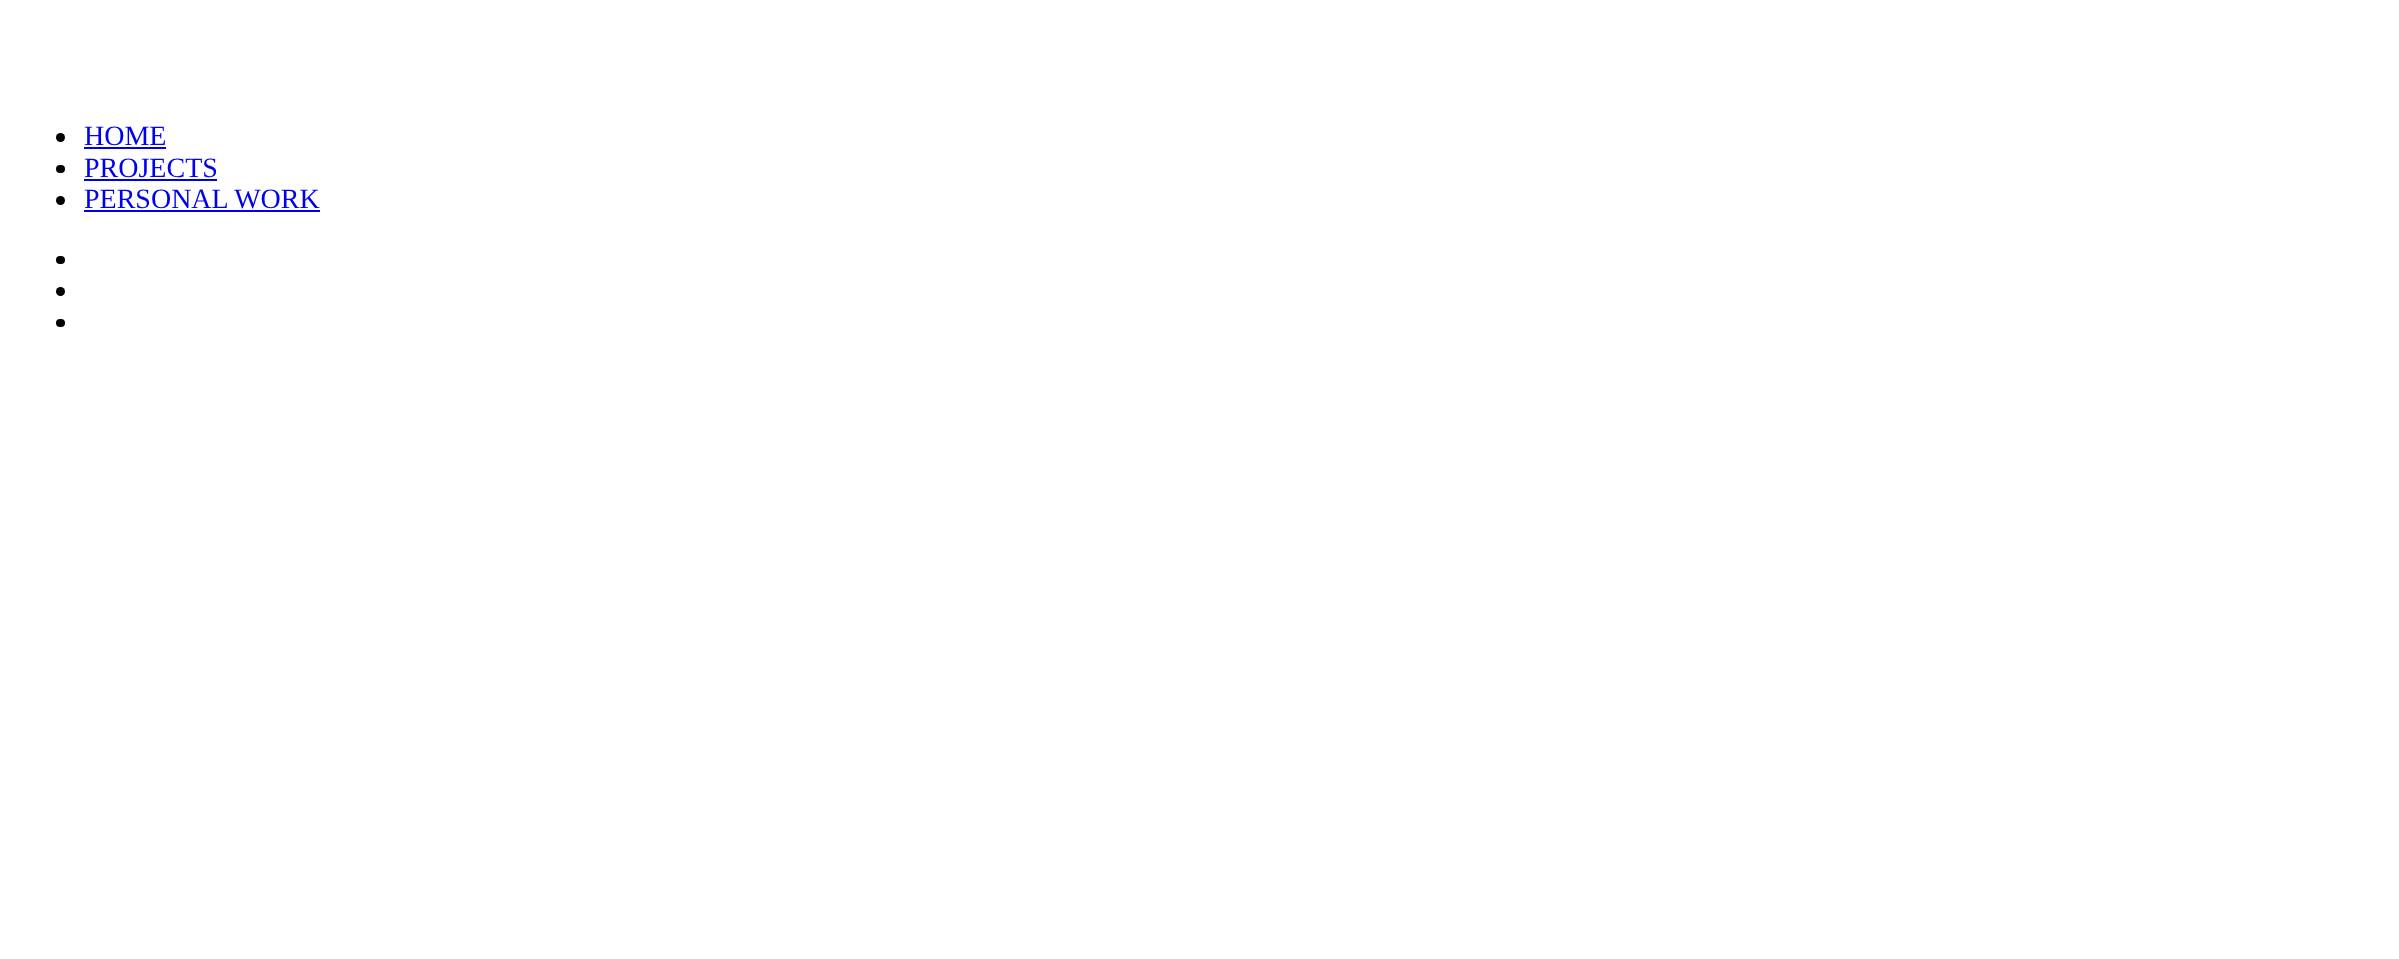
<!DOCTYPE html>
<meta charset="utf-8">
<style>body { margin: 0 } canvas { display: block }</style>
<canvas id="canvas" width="2399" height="959"></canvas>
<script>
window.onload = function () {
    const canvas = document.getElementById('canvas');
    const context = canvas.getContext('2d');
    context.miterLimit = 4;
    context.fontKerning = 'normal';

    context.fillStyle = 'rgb(255, 255, 255)';
    context.fillRect(0, 0, 2399, 959);
    context.fillStyle = 'rgb(0, 0, 0)';
    context.beginPath();
    context.arc(60.5, 137.5, 4.5, 0, 2 * Math.PI);
    context.fill();
    context.fillStyle = 'rgb(0, 0, 238)';
    context.fillRect(84, 147, 82, 2);
    context.fillStyle = 'rgb(0, 0, 0)';
    context.beginPath();
    context.roundRect(56, 165, 9, 8, 4);
    context.fill();
    context.fillStyle = 'rgb(0, 0, 238)';
    context.fillRect(84, 179, 133, 2);
    context.fillStyle = 'rgb(0, 0, 0)';
    context.beginPath();
    context.arc(60.5, 200.5, 4.5, 0, 2 * Math.PI);
    context.fill();
    context.fillStyle = 'rgb(0, 0, 238)';
    context.fillRect(84, 210, 236, 2);
    context.fillStyle = 'rgb(0, 0, 0)';
    context.beginPath();
    context.roundRect(56, 256, 9, 8, 4);
    context.fill();
    context.beginPath();
    context.arc(60.5, 291.5, 4.5, 0, 2 * Math.PI);
    context.fill();
    context.beginPath();
    context.roundRect(56, 319, 9, 8, 4);
    context.fill();
    context.font = '28px Liberation Serif';
    context.fillStyle = 'rgb(0, 0, 238)';
    context.fillText('HOME', 84, 145);
    context.fillText('PROJECTS', 84, 177);
    context.fillText('PERSONAL WORK', 84, 208);
};
</script>
